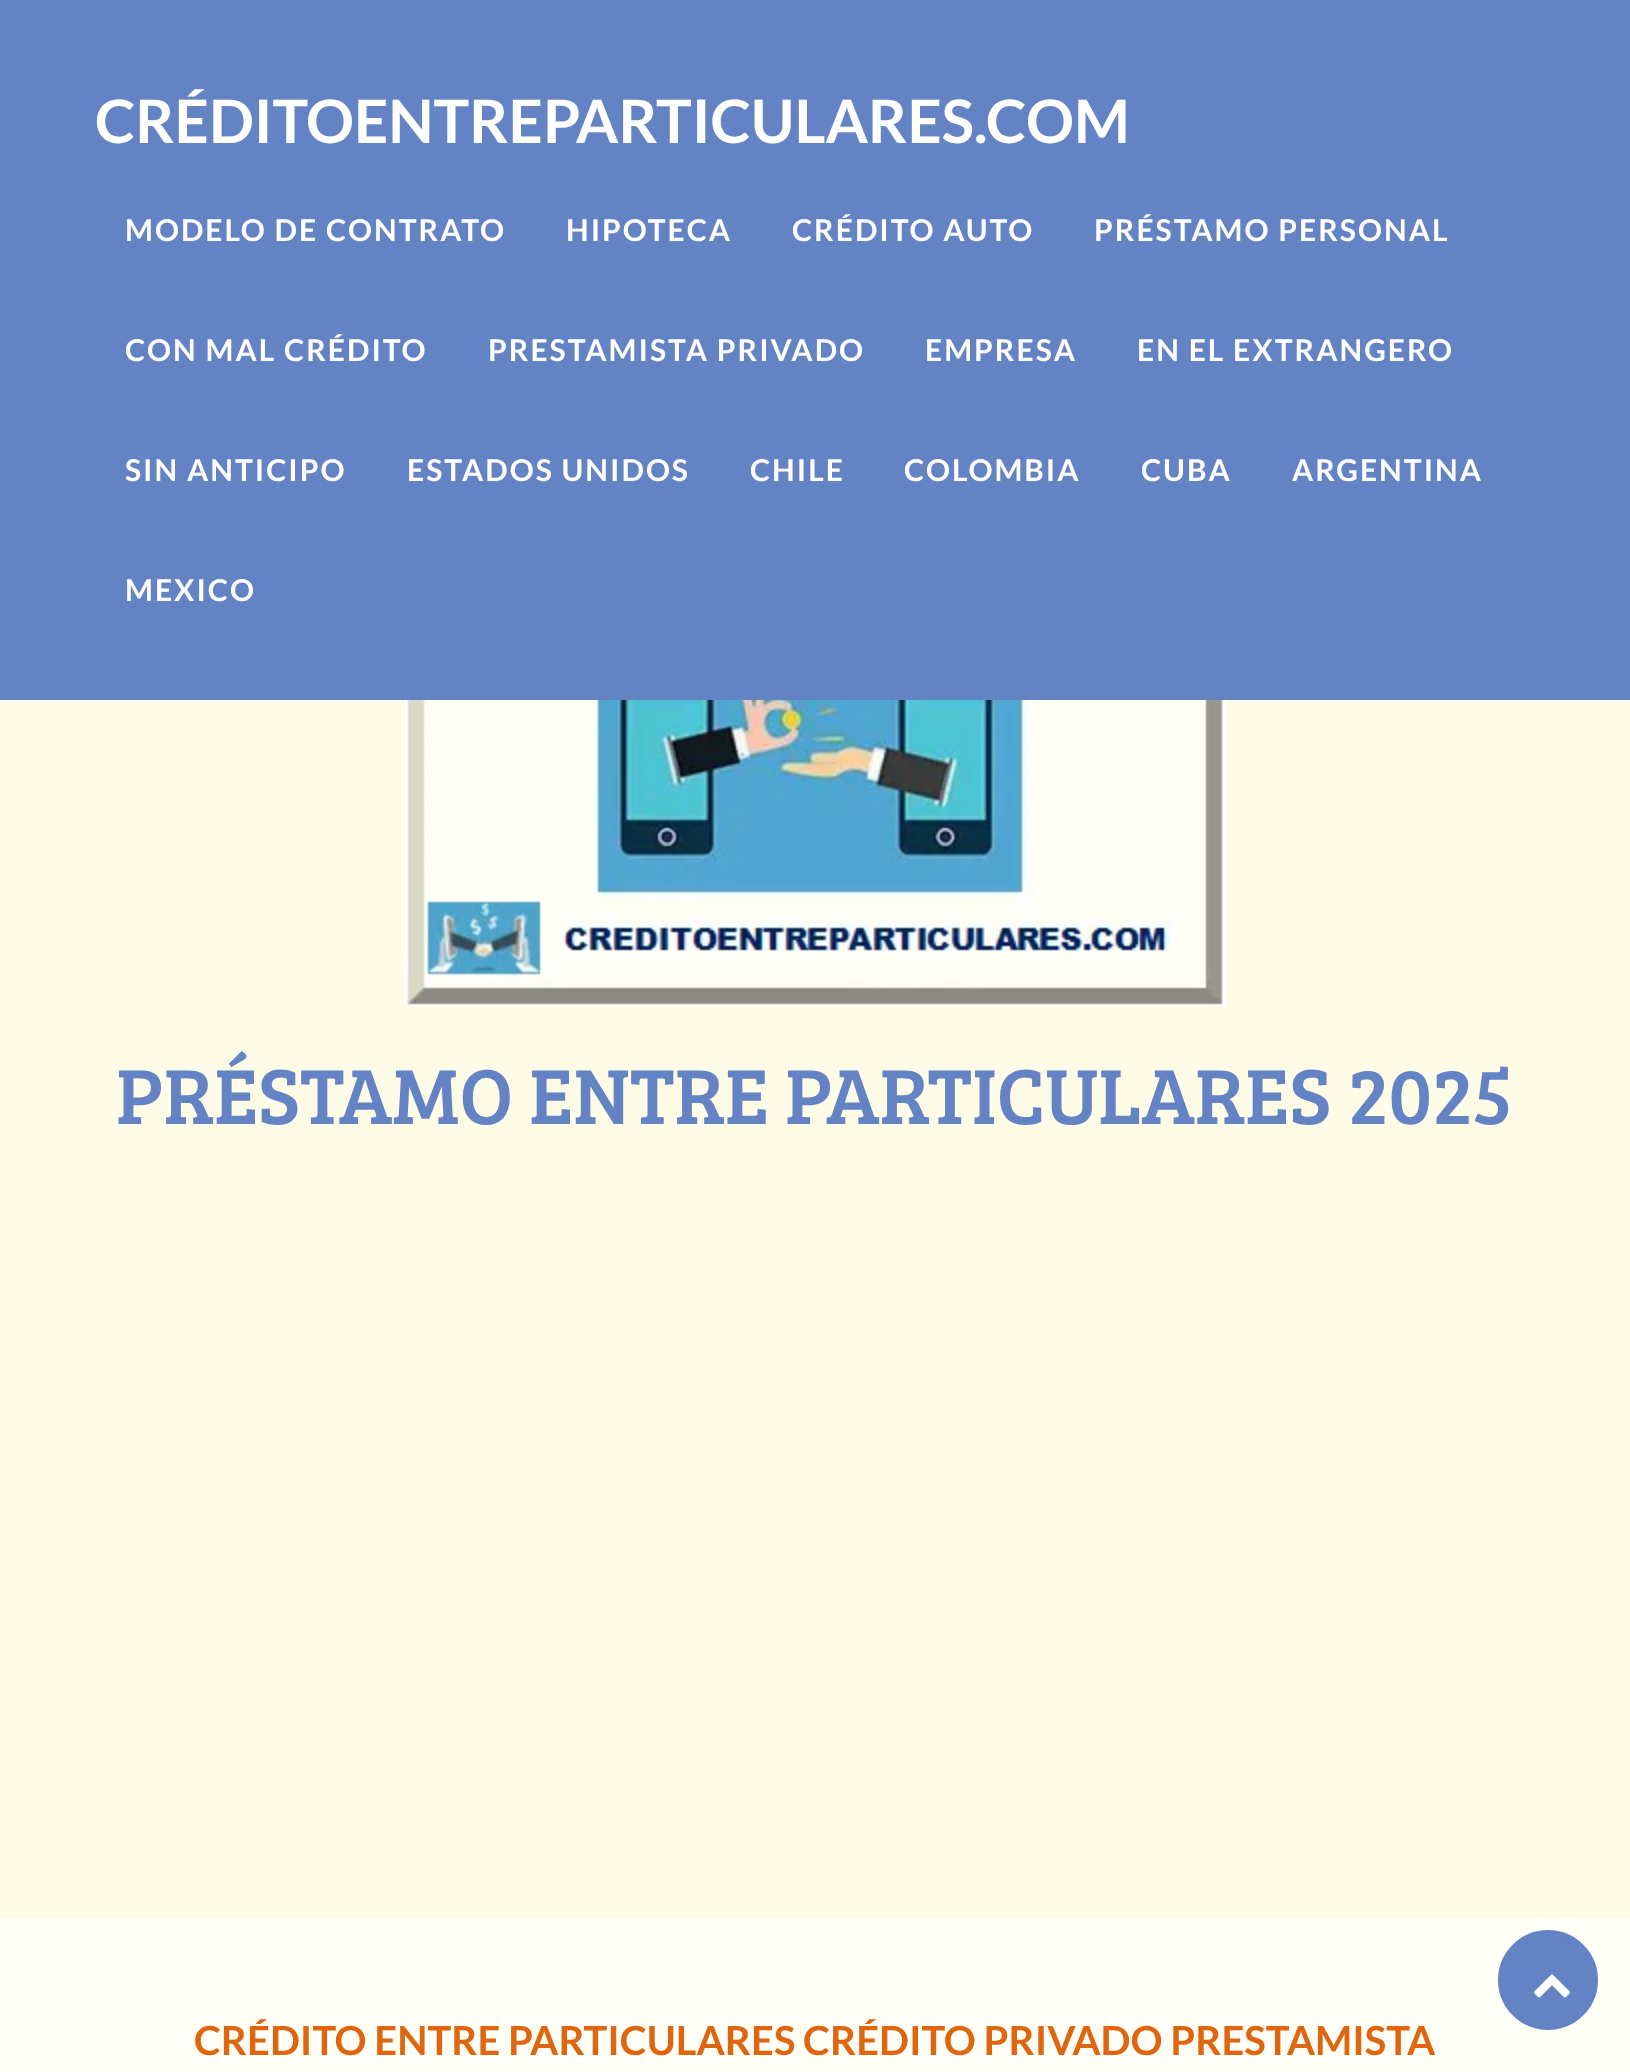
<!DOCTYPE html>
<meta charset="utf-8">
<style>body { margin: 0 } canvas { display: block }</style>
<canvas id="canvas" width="1630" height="2072"></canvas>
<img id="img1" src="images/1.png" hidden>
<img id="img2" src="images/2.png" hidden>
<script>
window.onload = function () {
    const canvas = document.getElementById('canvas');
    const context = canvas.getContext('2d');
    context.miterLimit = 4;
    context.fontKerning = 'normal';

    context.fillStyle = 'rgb(254, 251, 231)';
    context.fillRect(0, 0, 1630, 2072);
    context.fillStyle = 'rgb(100, 131, 196)';
    context.fillRect(0, 0, 1630, 700);
    context.drawImage(document.getElementById('img1'), 404, 700, 822, 306);
    context.fillStyle = 'rgb(255, 254, 247)';
    context.fillRect(0, 1918, 1630, 154);
    context.fillStyle = 'rgb(100, 131, 196)';
    context.beginPath();
    context.arc(1548, 1980, 48, 0, 2 * Math.PI);
    context.fill();
    context.strokeStyle = 'rgb(100, 131, 196)';
    context.lineWidth = 4;
    context.stroke();
    context.drawImage(document.getElementById('img2'), 1534, 1974, 36, 24);
    context.font = 'bold 60px Lato';
    context.fillStyle = 'rgb(255, 255, 255)';
    context.fillText('CRÉDITOENTREPARTICULARES.COM', 95, 143);
    context.letterSpacing = '2px';
    context.font = 'bold 30px Lato';
    context.fillText('MODELO DE CONTRATO', 125, 241);
    context.fillText('HIPOTECA', 566, 241);
    context.fillText('CRÉDITO AUTO', 792, 241);
    context.fillText('PRÉSTAMO PERSONAL', 1094, 241);
    context.fillText('CON MAL CRÉDITO', 125, 361);
    context.fillText('PRESTAMISTA PRIVADO', 488, 361);
    context.fillText('EMPRESA', 925, 361);
    context.fillText('EN EL EXTRANGERO', 1137, 361);
    context.fillText('SIN ANTICIPO', 125, 481);
    context.fillText('ESTADOS UNIDOS', 407, 481);
    context.fillText('CHILE', 750, 481);
    context.fillText('COLOMBIA', 904, 481);
    context.fillText('CUBA', 1141, 481);
    context.fillText('ARGENTINA', 1292, 481);
    context.fillText('MEXICO', 125, 601);
    context.letterSpacing = '0px';
    context.font = '80.5px Bree Serif';
    context.fillStyle = 'rgb(100, 131, 196)';
    context.fillText('PRÉSTAMO ENTRE PARTICULARES 2025', 116, 1124);
    context.font = 'bold 40px Lato';
    context.fillStyle = 'rgb(223, 102, 15)';
    context.fillText('CRÉDITO ENTRE PARTICULARES CRÉDITO PRIVADO PRESTAMISTA', 194, 2055);
};
</script>
